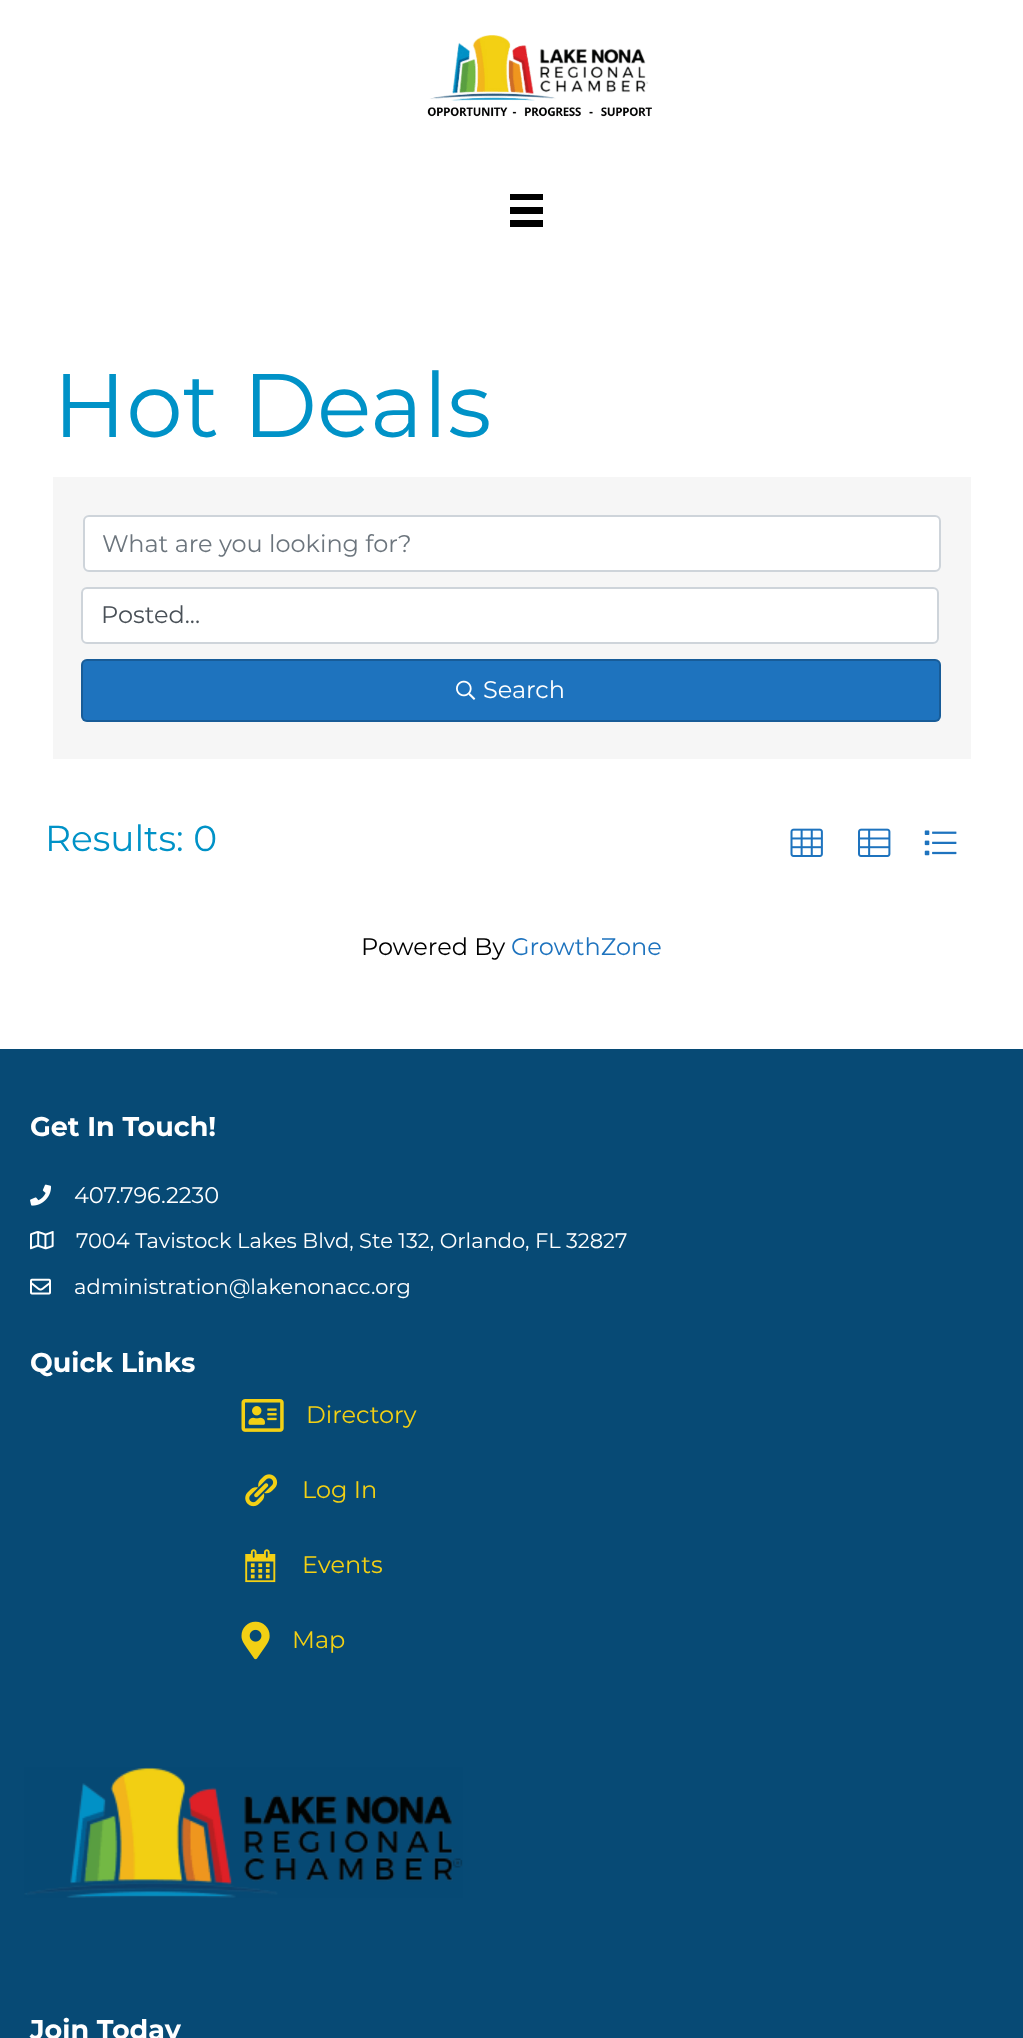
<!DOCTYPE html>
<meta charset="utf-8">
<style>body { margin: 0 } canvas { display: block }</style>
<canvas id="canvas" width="1023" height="2038"></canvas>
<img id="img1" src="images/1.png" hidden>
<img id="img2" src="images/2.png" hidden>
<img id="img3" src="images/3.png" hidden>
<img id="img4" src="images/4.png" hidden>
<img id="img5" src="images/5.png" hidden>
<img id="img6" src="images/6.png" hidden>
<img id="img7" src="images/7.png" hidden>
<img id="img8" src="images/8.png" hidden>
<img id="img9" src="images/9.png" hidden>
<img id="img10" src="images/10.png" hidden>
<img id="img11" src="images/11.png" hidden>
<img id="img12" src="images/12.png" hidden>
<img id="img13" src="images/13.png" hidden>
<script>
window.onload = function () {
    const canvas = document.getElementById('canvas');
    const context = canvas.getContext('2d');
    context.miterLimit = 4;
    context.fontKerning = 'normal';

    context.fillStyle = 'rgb(255, 255, 255)';
    context.fillRect(0, 0, 1023, 2038);
    context.drawImage(document.getElementById('img1'), 427, 35, 225, 82);
    context.fillStyle = 'rgb(0, 0, 0)';
    context.fillRect(510, 194, 33, 6);
    context.fillRect(510, 207, 33, 7);
    context.fillRect(510, 220, 33, 7);
    context.fillStyle = 'rgb(246, 246, 246)';
    context.fillRect(53, 477, 918, 282);
    context.fillStyle = 'rgb(255, 255, 255)';
    context.beginPath();
    context.roundRect(84, 516, 856, 55, 5);
    context.fill();
    context.strokeStyle = 'rgb(206, 212, 218)';
    context.lineWidth = 2;
    context.stroke();
    context.beginPath();
    context.roundRect(82, 588, 856, 55, 5);
    context.fill();
    context.stroke();
    context.fillStyle = 'rgb(30, 115, 190)';
    context.beginPath();
    context.roundRect(81, 659, 860, 63, 6);
    context.fill();
    context.beginPath();
    context.roundRect(82, 660, 858, 61, 5);
    context.strokeStyle = 'rgba(0, 0, 0, 0.2)';
    context.stroke();
    context.drawImage(document.getElementById('img2'), 456, 680, 20, 20);
    context.drawImage(document.getElementById('img3'), 790, 828, 33, 29);
    context.drawImage(document.getElementById('img4'), 858, 828, 33, 29);
    context.drawImage(document.getElementById('img5'), 924, 830, 33, 26);
    context.fillStyle = 'rgb(7, 74, 117)';
    context.fillRect(0, 1049, 1023, 989);
    context.drawImage(document.getElementById('img6'), 30, 1184, 21, 22);
    context.drawImage(document.getElementById('img7'), 30, 1231, 24, 19);
    context.drawImage(document.getElementById('img8'), 30, 1278, 21, 17);
    context.drawImage(document.getElementById('img9'), 241, 1399, 43, 33);
    context.drawImage(document.getElementById('img10'), 245, 1474, 33, 33);
    context.drawImage(document.getElementById('img11'), 245, 1549, 31, 34);
    context.drawImage(document.getElementById('img12'), 241, 1621, 29, 39);
    context.drawImage(document.getElementById('img13'), 24, 1767, 439, 131);
    context.font = '90px Montserrat';
    context.fillStyle = 'rgb(0, 146, 199)';
    context.fillText('Hot Deals', 53, 437);
    context.font = '24px Montserrat';
    context.fillStyle = 'rgb(108, 117, 125)';
    context.fillText('What are you looking for?', 102, 552);
    context.fillStyle = 'rgb(73, 80, 87)';
    context.fillText('Posted...', 101, 623);
    context.fillStyle = 'rgb(255, 255, 255)';
    context.fillText('Search', 483, 698);
    context.font = '36px Montserrat';
    context.fillStyle = 'rgb(0, 146, 199)';
    context.fillText('Results: 0', 45, 851);
    context.font = '24px Montserrat';
    context.fillStyle = 'rgb(0, 0, 0)';
    context.fillText('Powered By', 361, 955);
    context.fillStyle = 'rgb(30, 115, 190)';
    context.fillText('GrowthZone', 511, 955);
    context.font = 'bold 27px Montserrat';
    context.fillStyle = 'rgb(255, 255, 255)';
    context.fillText('Get In Touch!', 30, 1136);
    context.font = '22.5px Montserrat';
    context.fillText('407.796.2230', 74, 1203);
    context.font = '21px Montserrat';
    context.fillText('7004 Tavistock Lakes Blvd, Ste 132, Orlando, FL 32827', 76, 1248);
    context.fillText('administration@lakenonacc.org', 74, 1294);
    context.font = 'bold 27px Montserrat';
    context.fillText('Quick Links', 30, 1372);
    context.font = '24px Montserrat';
    context.fillStyle = 'rgb(243, 208, 20)';
    context.fillText('Directory', 306, 1423);
    context.fillText('Log In', 302, 1498);
    context.fillText('Events', 302, 1573);
    context.fillText('Map', 292, 1648);
    context.font = 'bold 27px Montserrat';
    context.fillStyle = 'rgb(255, 255, 255)';
    context.fillText('Join Today', 30, 2039);
};
</script>
